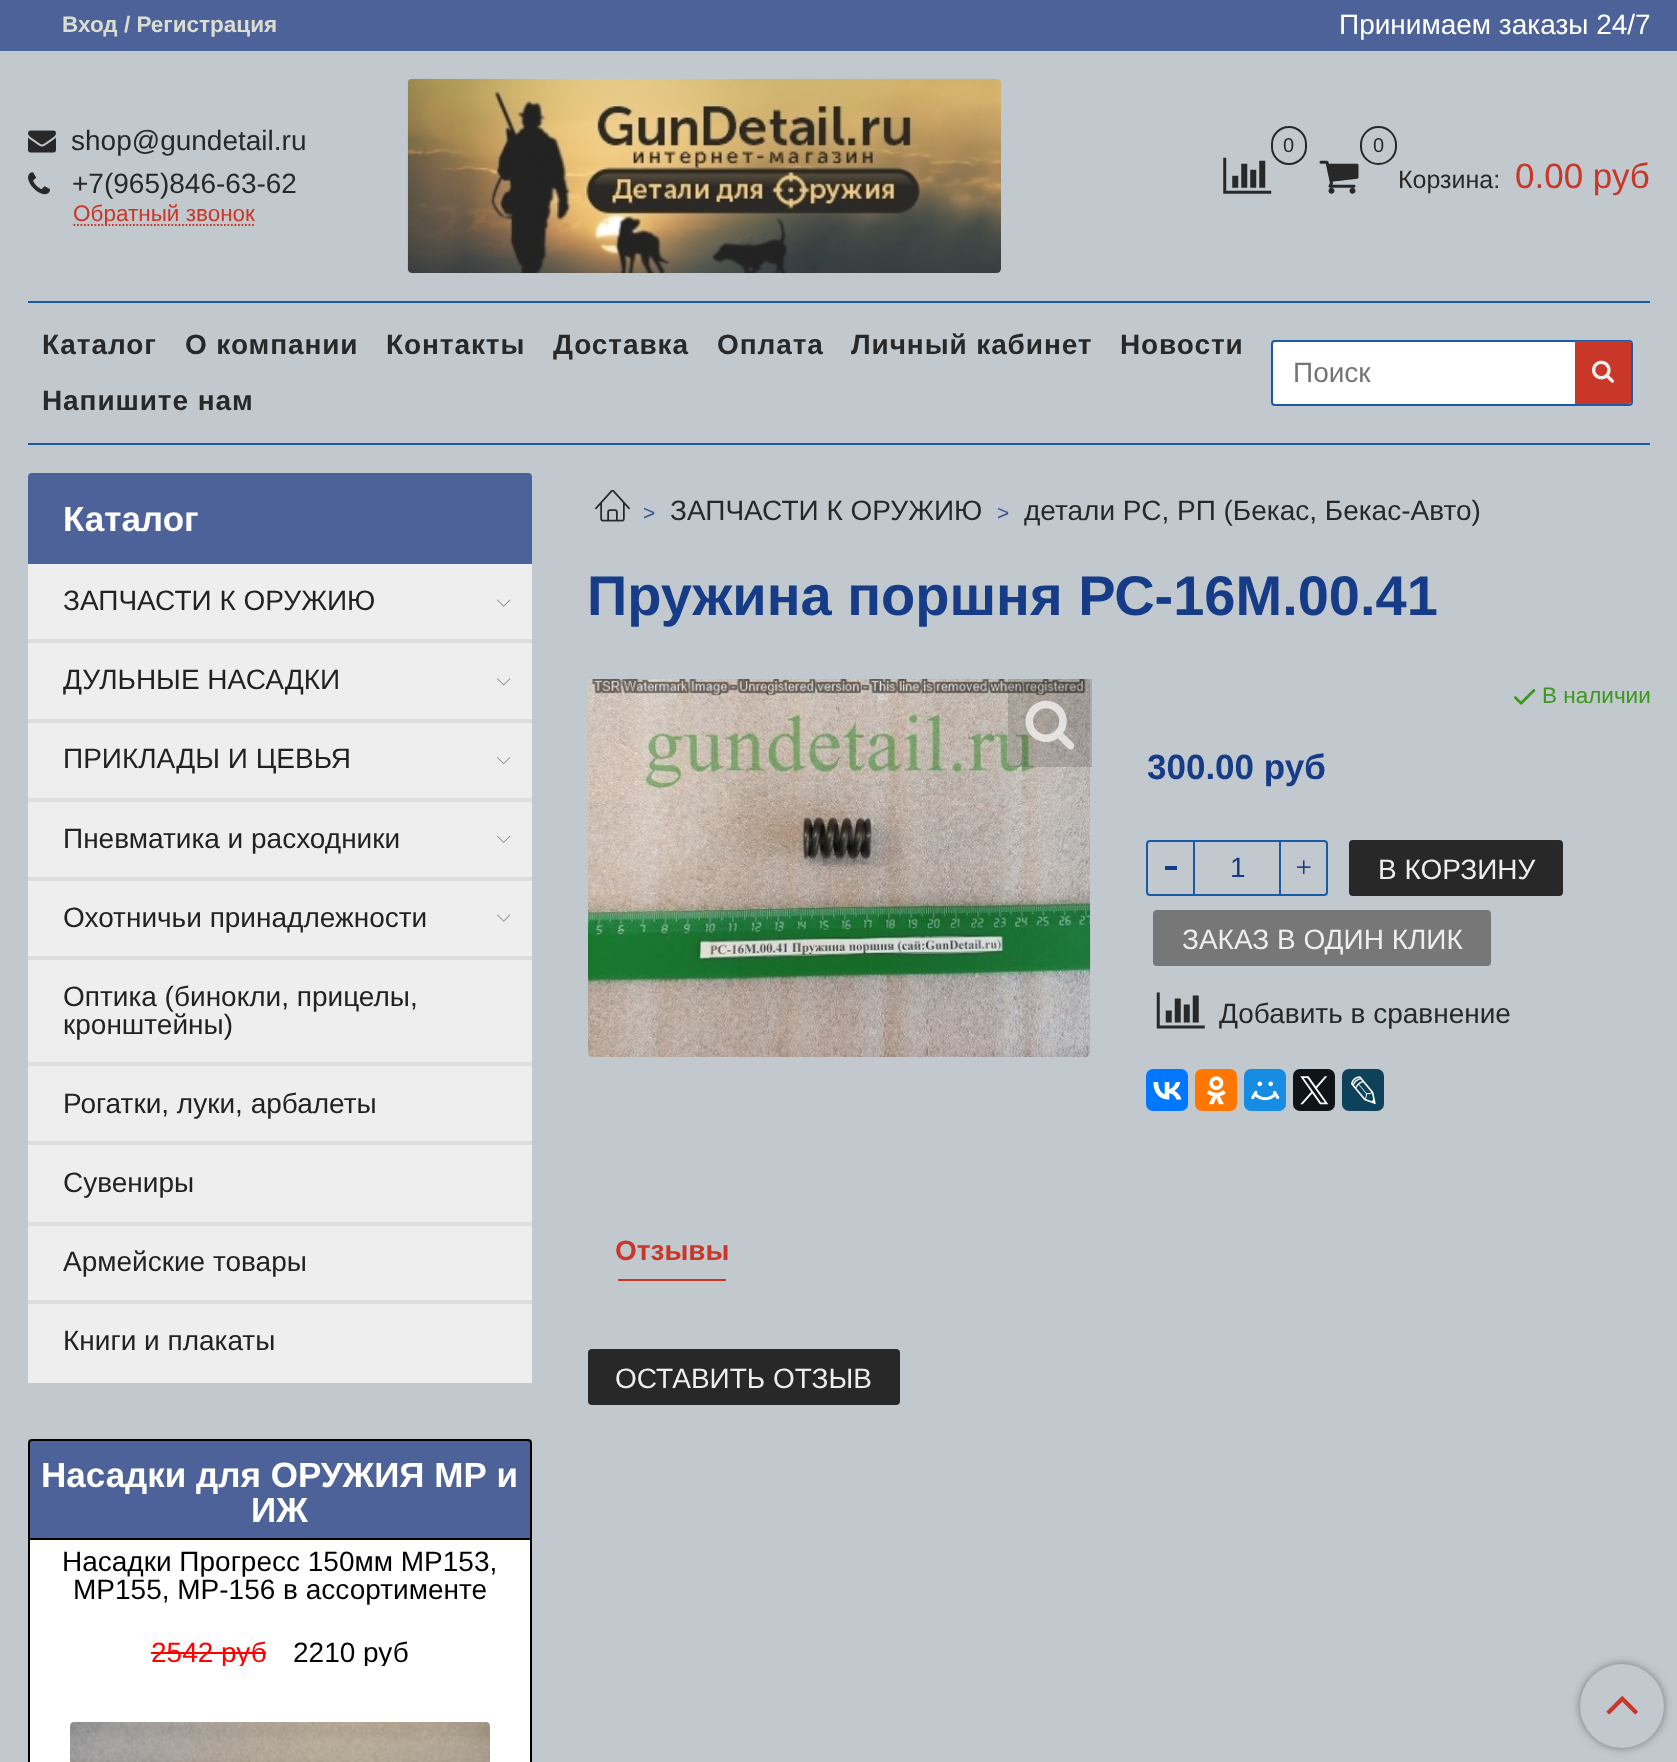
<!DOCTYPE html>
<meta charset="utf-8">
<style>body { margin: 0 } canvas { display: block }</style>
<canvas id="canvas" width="1677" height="1762"></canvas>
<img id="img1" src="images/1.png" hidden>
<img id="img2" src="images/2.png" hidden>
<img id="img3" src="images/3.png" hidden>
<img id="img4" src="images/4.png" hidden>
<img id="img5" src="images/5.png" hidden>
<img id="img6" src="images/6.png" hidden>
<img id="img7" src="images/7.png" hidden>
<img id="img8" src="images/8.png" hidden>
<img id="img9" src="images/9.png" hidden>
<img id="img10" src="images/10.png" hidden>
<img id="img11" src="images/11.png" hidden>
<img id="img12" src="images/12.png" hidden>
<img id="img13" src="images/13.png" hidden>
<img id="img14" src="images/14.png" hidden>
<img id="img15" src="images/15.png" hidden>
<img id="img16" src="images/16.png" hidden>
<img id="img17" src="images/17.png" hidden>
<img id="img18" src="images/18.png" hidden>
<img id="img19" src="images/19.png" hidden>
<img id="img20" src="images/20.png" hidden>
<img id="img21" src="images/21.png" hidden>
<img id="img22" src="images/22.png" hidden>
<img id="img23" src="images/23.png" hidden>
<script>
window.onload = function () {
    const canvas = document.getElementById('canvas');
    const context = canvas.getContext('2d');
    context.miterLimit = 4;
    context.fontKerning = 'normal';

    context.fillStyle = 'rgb(194, 201, 206)';
    context.fillRect(0, 0, 1677, 1762);
    context.fillStyle = 'rgb(76, 98, 152)';
    context.fillRect(0, 0, 1677, 51);
    context.drawImage(document.getElementById('img1'), 28, 130, 28, 23);
    context.drawImage(document.getElementById('img2'), 28, 172, 22, 23);
    context.beginPath();
    context.moveTo(73.5, 225);
    context.lineTo(254, 225);
    context.strokeStyle = 'rgb(201, 55, 41)';
    context.lineWidth = 1.8;
    context.setLineDash([1.75, 1.75]);
    context.stroke();
    context.drawImage(document.getElementById('img3'), 407, 78, 594, 195);
    context.drawImage(document.getElementById('img4'), 1223, 157, 49, 37);
    context.beginPath();
    context.roundRect(1272, 127, 34, 37, 17);
    context.strokeStyle = 'rgb(40, 40, 40)';
    context.lineWidth = 2;
    context.setLineDash([]);
    context.stroke();
    context.beginPath();
    context.roundRect(1361, 127, 35, 37, 17.5);
    context.stroke();
    context.drawImage(document.getElementById('img5'), 1319, 160, 40, 34);
    context.fillStyle = 'rgb(25, 91, 165)';
    context.fillRect(28, 301, 1622, 2);
    context.fillRect(28, 443, 1622, 2);
    context.fillStyle = 'rgb(255, 255, 255)';
    context.beginPath();
    context.roundRect(1272, 341, 360, 64, 3);
    context.fill();
    context.strokeStyle = 'rgb(25, 91, 165)';
    context.stroke();
    context.fillStyle = 'rgb(201, 55, 41)';
    context.beginPath();
    context.roundRect(1575, 341, 56, 63, [0, 2.5, 2.5, 0]);
    context.fill();
    context.drawImage(document.getElementById('img6'), 1592, 360, 22, 23);
    context.fillStyle = 'rgb(76, 98, 152)';
    context.beginPath();
    context.roundRect(28, 473, 504, 91, [4, 4, 0, 0]);
    context.fill();
    context.fillStyle = 'rgb(238, 238, 238)';
    context.fillRect(28, 564, 504, 819);
    context.fillStyle = 'rgb(221, 221, 221)';
    context.fillRect(28, 639, 504, 4);
    context.drawImage(document.getElementById('img7'), 497, 599, 14, 8);
    context.fillRect(28, 719, 504, 4);
    context.drawImage(document.getElementById('img8'), 497, 678, 14, 8);
    context.fillRect(28, 798, 504, 4);
    context.drawImage(document.getElementById('img9'), 497, 757, 14, 7);
    context.fillRect(28, 877, 504, 4);
    context.drawImage(document.getElementById('img10'), 497, 835, 14, 8);
    context.fillRect(28, 956, 504, 4);
    context.drawImage(document.getElementById('img7'), 497, 914, 14, 8);
    context.fillRect(28, 1062, 504, 4);
    context.fillRect(28, 1141, 504, 4);
    context.fillRect(28, 1222, 504, 4);
    context.fillRect(28, 1300, 504, 4);
    context.fillStyle = 'rgb(76, 98, 152)';
    context.beginPath();
    context.roundRect(29, 1440, 502, 99, [3, 3, 0, 0]);
    context.fill();
    context.strokeStyle = 'rgb(0, 0, 0)';
    context.stroke();
    context.fillStyle = 'rgb(255, 255, 255)';
    context.fillRect(30, 1540, 500, 222);
    context.fillStyle = 'rgb(0, 0, 0)';
    context.fillRect(530, 1540, 2, 222);
    context.fillRect(28, 1540, 2, 222);
    context.fillStyle = 'rgb(255, 0, 0)';
    context.fillRect(151, 1652, 115, 2);
    context.drawImage(document.getElementById('img11'), 70, 1722, 420, 40);
    context.drawImage(document.getElementById('img12'), 595, 489, 35, 33);
    context.drawImage(document.getElementById('img13'), 588, 679, 503, 378);
    context.fillStyle = 'rgba(1, 1, 1, 0.14)';
    context.fillRect(1008, 679, 84, 88);
    context.drawImage(document.getElementById('img14'), 1025, 700, 50, 50);
    context.fillStyle = 'rgb(204, 204, 204)';
    context.fillRect(588, 679, 4, 4);
    context.drawImage(document.getElementById('img15'), 1513, 689, 23, 16);
    context.beginPath();
    context.roundRect(1147, 841, 47, 54, [3, 0, 0, 3]);
    context.strokeStyle = 'rgb(25, 91, 165)';
    context.stroke();
    context.fillStyle = 'rgb(22, 60, 135)';
    context.fillRect(1165, 866, 12, 4);
    context.fillStyle = 'rgb(25, 91, 165)';
    context.fillRect(1195, 840, 84, 2);
    context.fillRect(1195, 894, 84, 2);
    context.beginPath();
    context.roundRect(1280, 841, 47, 54, [0, 3, 3, 0]);
    context.stroke();
    context.drawImage(document.getElementById('img16'), 1296, 860, 15, 15);
    context.fillStyle = 'rgb(40, 40, 40)';
    context.beginPath();
    context.roundRect(1349, 840, 214, 56, 4);
    context.fill();
    context.fillStyle = 'rgb(119, 119, 119)';
    context.beginPath();
    context.roundRect(1153, 910, 338, 56, 4);
    context.fill();
    context.drawImage(document.getElementById('img17'), 1156, 992, 49, 37);
    context.fillStyle = 'rgb(0, 119, 255)';
    context.beginPath();
    context.roundRect(1146, 1069, 42, 42, 7);
    context.fill();
    context.drawImage(document.getElementById('img18'), 1153, 1082, 29, 18);
    context.fillStyle = 'rgb(255, 119, 0)';
    context.beginPath();
    context.roundRect(1195, 1069, 42, 42, 7);
    context.fill();
    context.drawImage(document.getElementById('img19'), 1206, 1076, 20, 29);
    context.fillStyle = 'rgb(22, 141, 226)';
    context.beginPath();
    context.roundRect(1244, 1069, 42, 42, 7);
    context.fill();
    context.drawImage(document.getElementById('img20'), 1251, 1081, 29, 20);
    context.fillStyle = 'rgb(15, 20, 25)';
    context.beginPath();
    context.roundRect(1293, 1069, 42, 42, 7);
    context.fill();
    context.drawImage(document.getElementById('img21'), 1300, 1076, 29, 29);
    context.fillStyle = 'rgb(13, 66, 90)';
    context.beginPath();
    context.roundRect(1342, 1069, 42, 42, 7);
    context.fill();
    context.drawImage(document.getElementById('img22'), 1351, 1076, 25, 29);
    context.fillStyle = 'rgb(201, 55, 41)';
    context.fillRect(618, 1279, 108, 2);
    context.fillStyle = 'rgb(40, 40, 40)';
    context.beginPath();
    context.roundRect(588, 1349, 312, 56, 4);
    context.fill();
    context.fillStyle = 'rgb(119, 119, 119)';
    context.filter = 'blur(4.5px)';
    context.beginPath();
    context.roundRect(1580, 1664, 84, 84, 42);
    context.fill();
    context.filter = 'none';
    context.fillStyle = 'rgb(194, 201, 206)';
    context.beginPath();
    context.arc(1622, 1706, 42, 0, 2 * Math.PI);
    context.fill();
    context.drawImage(document.getElementById('img23'), 1606, 1696, 32, 19);
    context.font = 'bold 22.5px Liberation Sans';
    context.fillStyle = 'rgb(218, 221, 208)';
    context.fillText('Вход / Регистрация', 62, 32);
    context.font = '28px Liberation Sans';
    context.fillStyle = 'rgb(255, 255, 255)';
    context.fillText('Принимаем заказы 24/7', 1339, 34);
    context.fillStyle = 'rgb(40, 40, 40)';
    context.fillText('shop@gundetail.ru', 71, 150);
    context.fillText('+7(965)846-63-62', 72, 193);
    context.font = '22.5px Liberation Sans';
    context.fillStyle = 'rgb(201, 55, 41)';
    context.fillText('Обратный звонок', 73, 221);
    context.font = '20px Liberation Sans';
    context.fillStyle = 'rgb(40, 40, 40)';
    context.fillText('0', 1283, 152);
    context.fillText('0', 1373, 152);
    context.font = '25px Liberation Sans';
    context.fillText('Корзина:', 1398, 188);
    context.font = '35px Liberation Sans';
    context.fillStyle = 'rgb(201, 55, 41)';
    context.fillText('0.00 руб', 1515, 188);
    context.letterSpacing = '0.9px';
    context.font = 'bold 28px Liberation Sans';
    context.fillStyle = 'rgb(40, 40, 40)';
    context.fillText('Каталог', 42, 354);
    context.fillText('О компании', 185, 354);
    context.fillText('Контакты', 386, 354);
    context.fillText('Доставка', 553, 354);
    context.fillText('Оплата', 717, 354);
    context.fillText('Личный кабинет', 851, 354);
    context.fillText('Новости', 1120, 354);
    context.fillText('Напишите нам', 42, 410);
    context.letterSpacing = '0px';
    context.font = '28px Liberation Sans';
    context.fillStyle = 'rgb(117, 117, 117)';
    context.fillText('Поиск', 1293, 382);
    context.font = 'bold 35px Liberation Sans';
    context.fillStyle = 'rgb(255, 255, 255)';
    context.fillText('Каталог', 63, 531);
    context.font = '28px Liberation Sans';
    context.fillStyle = 'rgb(34, 34, 34)';
    context.fillText('ЗАПЧАСТИ К ОРУЖИЮ', 63, 610);
    context.fillText('ДУЛЬНЫЕ НАСАДКИ', 63, 689);
    context.fillText('ПРИКЛАДЫ И ЦЕВЬЯ', 63, 768);
    context.fillText('Пневматика и расходники', 63, 848);
    context.fillText('Охотничьи принадлежности', 63, 927);
    context.fillText('Оптика (бинокли, прицелы,', 63, 1006);
    context.fillText('кронштейны)', 63, 1034);
    context.fillText('Рогатки, луки, арбалеты', 63, 1113);
    context.fillText('Сувениры', 63, 1192);
    context.fillText('Армейские товары', 63, 1271);
    context.fillText('Книги и плакаты', 63, 1350);
    context.font = 'bold 35px Liberation Sans';
    context.fillStyle = 'rgb(255, 255, 255)';
    context.fillText('Насадки для ОРУЖИЯ МР и', 41, 1487);
    context.fillText('ИЖ', 251, 1522);
    context.font = '28px Liberation Sans';
    context.fillStyle = 'rgb(0, 0, 0)';
    context.fillText('Насадки Прогресс 150мм МР153,', 62, 1571);
    context.fillText('МР155, МР-156 в ассортименте', 73, 1599);
    context.save();
    context.beginPath();
    context.rect(151, 1631, 115, 35);
    context.clip();
    context.fillStyle = 'rgb(255, 0, 0)';
    context.fillText('2542 руб', 151, 1662);
    context.restore();
    context.save();
    context.beginPath();
    context.rect(292, 1631, 116, 35);
    context.clip();
    context.fillText('2210 руб', 293, 1662);
    context.restore();
    context.font = '21px Liberation Sans';
    context.fillStyle = 'rgb(56, 88, 149)';
    context.fillText('>', 643, 520);
    context.font = '28px Liberation Sans';
    context.fillStyle = 'rgb(40, 40, 40)';
    context.fillText('ЗАПЧАСТИ К ОРУЖИЮ', 670, 520);
    context.font = '21px Liberation Sans';
    context.fillStyle = 'rgb(56, 88, 149)';
    context.fillText('>', 997, 520);
    context.font = '28px Liberation Sans';
    context.fillStyle = 'rgb(40, 40, 40)';
    context.fillText('детали РС, РП (Бекас, Бекас-Авто)', 1024, 520);
    context.font = 'bold 56px Liberation Sans';
    context.fillStyle = 'rgb(22, 60, 135)';
    context.fillText('Пружина поршня РС-16М.00.41', 587, 615);
    context.font = '22.5px Liberation Sans';
    context.fillStyle = 'rgb(60, 152, 29)';
    context.fillText('В наличии', 1542, 703);
    context.font = 'bold 35px Liberation Sans';
    context.fillStyle = 'rgb(22, 60, 135)';
    context.fillText('300.00 руб', 1147, 779);
    context.font = '28px Liberation Sans';
    context.fillText('1', 1230, 877);
    context.fillStyle = 'rgb(238, 238, 238)';
    context.fillText('В КОРЗИНУ', 1378, 879);
    context.fillText('ЗАКАЗ В ОДИН КЛИК', 1182, 949);
    context.fillStyle = 'rgb(40, 40, 40)';
    context.fillText('Добавить в сравнение', 1219, 1023);
    context.font = 'bold 28px Liberation Sans';
    context.fillStyle = 'rgb(201, 55, 41)';
    context.fillText('Отзывы', 615, 1260);
    context.font = '28px Liberation Sans';
    context.fillStyle = 'rgb(238, 238, 238)';
    context.fillText('ОСТАВИТЬ ОТЗЫВ', 615, 1388);
};
</script>
